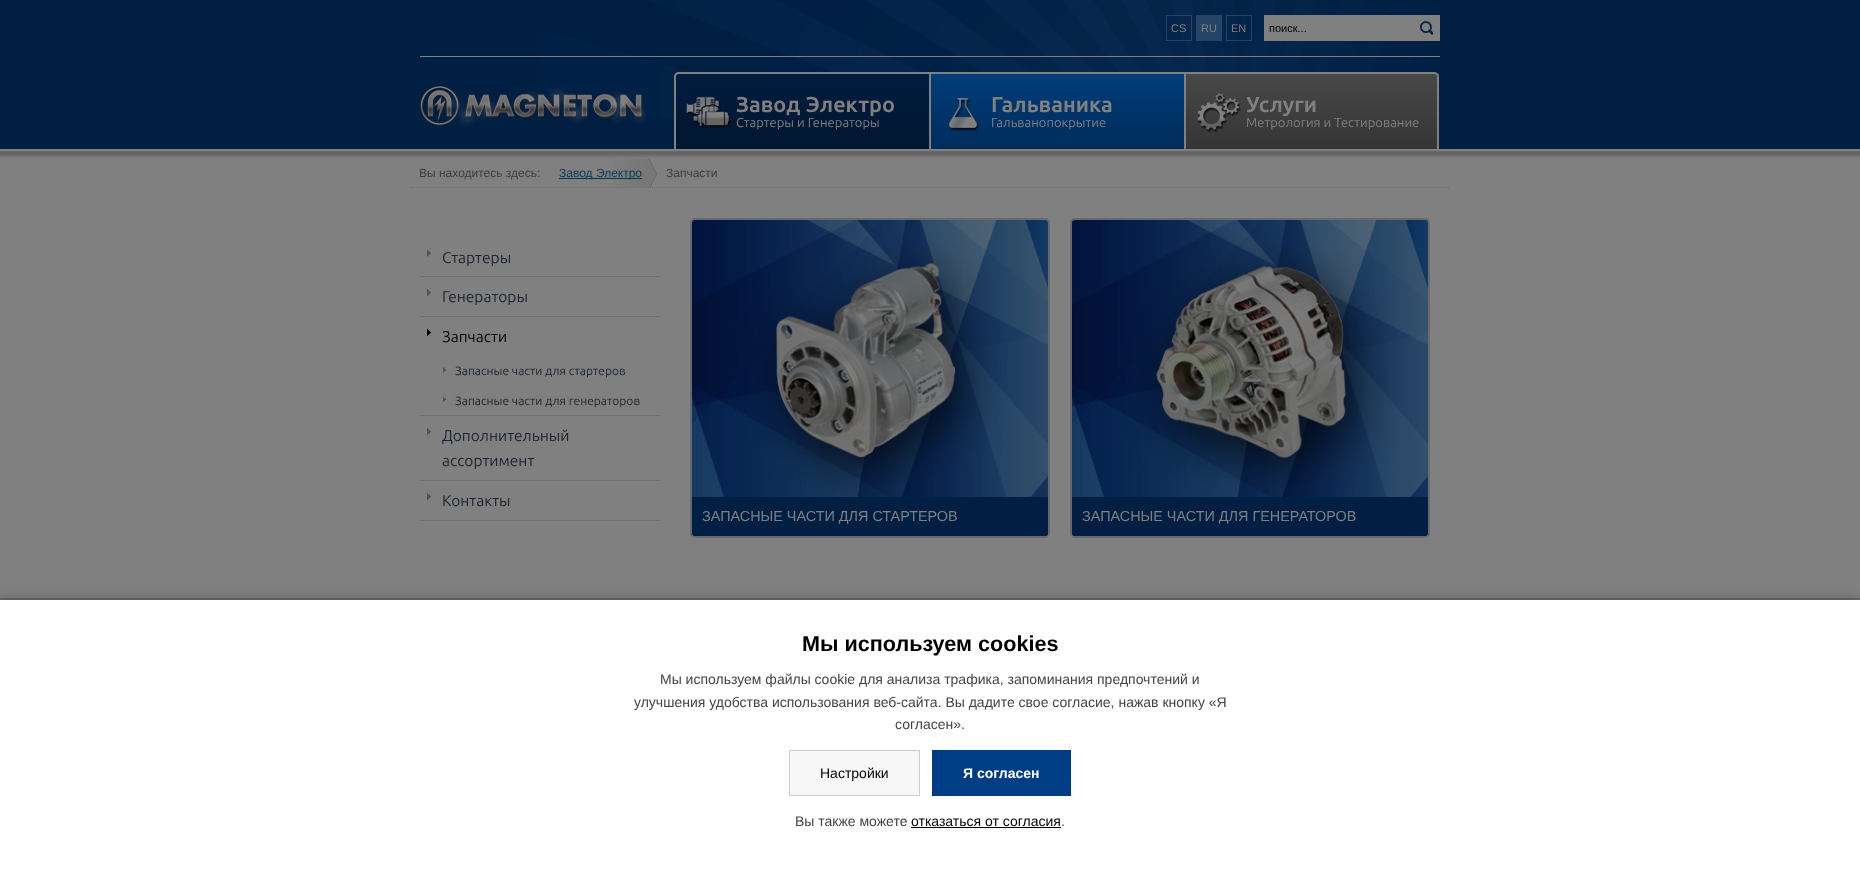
<!DOCTYPE html>
<meta charset="utf-8">
<style>body { margin: 0 } canvas { display: block }</style>
<canvas id="canvas" width="1860" height="872"></canvas>
<img id="img1" src="images/1.png" hidden>
<img id="img2" src="images/2.png" hidden>
<img id="img3" src="images/3.png" hidden>
<img id="img4" src="images/4.png" hidden>
<img id="img5" src="images/5.png" hidden>
<img id="img6" src="images/6.png" hidden>
<img id="img7" src="images/7.png" hidden>
<img id="img8" src="images/8.png" hidden>
<img id="img9" src="images/9.png" hidden>
<img id="img10" src="images/10.png" hidden>
<img id="img11" src="images/11.png" hidden>
<img id="img12" src="images/12.png" hidden>
<img id="img13" src="images/13.png" hidden>
<img id="img14" src="images/14.png" hidden>
<img id="img15" src="images/15.png" hidden>
<img id="img16" src="images/16.png" hidden>
<img id="img17" src="images/17.png" hidden>
<script>
window.onload = function () {
    const canvas = document.getElementById('canvas');
    const context = canvas.getContext('2d');
    context.miterLimit = 4;
    context.fontKerning = 'normal';
    let gradient;

    context.fillStyle = 'rgb(102, 102, 102)';
    context.fillRect(0, 0, 1860, 872);
    context.fillStyle = 'rgb(1, 31, 67)';
    context.fillRect(0, 0, 1860, 149);
    context.drawImage(document.getElementById('img1'), 541, 0, 885, 149);
    context.fillStyle = 'rgb(128, 128, 128)';
    context.fillRect(0, 149, 1860, 2);
    context.strokeStyle = 'rgb(38, 68, 104)';
    context.strokeRect(1166.5, 15.5, 25, 25);
    context.fillStyle = 'rgb(38, 68, 104)';
    context.fillRect(1196, 15, 26, 26);
    context.strokeRect(1226.5, 15.5, 25, 25);
    context.fillStyle = 'rgb(128, 128, 128)';
    context.fillRect(1264, 15, 176, 26);
    context.drawImage(document.getElementById('img2'), 1420, 21, 13, 14);
    context.fillRect(420, 56, 1020, 1);
    context.drawImage(document.getElementById('img3'), 420, 85, 226, 42);
    gradient = context.createLinearGradient(803, 149, 803, 74);
    gradient.addColorStop(0, 'rgb(1, 22, 47)');
    gradient.addColorStop(1, 'rgb(1, 29, 64)');
    context.fillStyle = gradient;
    context.fillRect(674, 74, 255, 75);
    context.fillStyle = 'rgb(128, 128, 128)';
    context.beginPath();
    context.moveTo(679, 72);
    context.lineTo(929, 72);
    context.lineTo(929, 149);
    context.lineTo(674, 149);
    context.lineTo(674, 77);
    context.bezierCurveTo(674, 74, 676, 72, 679, 72);
    context.closePath();
    context.moveTo(679, 74);
    context.lineTo(929, 74);
    context.lineTo(929, 149);
    context.lineTo(676, 149);
    context.lineTo(676, 77);
    context.bezierCurveTo(676, 75, 677, 74, 679, 74);
    context.closePath();
    context.fill('evenodd');
    context.drawImage(document.getElementById('img4'), 686, 96, 45, 33);
    gradient = context.createLinearGradient(1058, 149, 1058, 74);
    gradient.addColorStop(0, 'rgb(0, 44, 90)');
    gradient.addColorStop(1, 'rgb(0, 61, 122)');
    context.fillStyle = gradient;
    context.fillRect(931, 74, 253, 75);
    context.fillStyle = 'rgb(128, 128, 128)';
    context.fillRect(929, 72, 255, 2);
    context.fillRect(929, 72, 2, 77);
    context.drawImage(document.getElementById('img5'), 949, 98, 30, 33);
    gradient = context.createLinearGradient(1312, 149, 1312, 74);
    gradient.addColorStop(0, 'rgb(54, 53, 53)');
    gradient.addColorStop(1, 'rgb(73, 72, 72)');
    context.fillStyle = gradient;
    context.fillRect(1186, 74, 253, 75);
    context.fillStyle = 'rgb(128, 128, 128)';
    context.beginPath();
    context.moveTo(1184, 72);
    context.lineTo(1434, 72);
    context.bezierCurveTo(1437, 72, 1439, 74, 1439, 77);
    context.lineTo(1439, 149);
    context.lineTo(1184, 149);
    context.closePath();
    context.moveTo(1186, 74);
    context.lineTo(1434, 74);
    context.bezierCurveTo(1436, 74, 1437, 75, 1437, 77);
    context.lineTo(1437, 149);
    context.lineTo(1186, 149);
    context.closePath();
    context.fill('evenodd');
    context.drawImage(document.getElementById('img6'), 1197, 93, 44, 40);
    context.drawImage(document.getElementById('img7'), 0, 152, 1860, 7);
    context.fillRect(0, 159, 1860, 439);
    context.beginPath();
    context.moveTo(410, 187.5);
    context.lineTo(1450, 187.5);
    context.strokeStyle = 'rgb(111, 111, 111)';
    context.setLineDash([1, 1]);
    context.stroke();
    context.drawImage(document.getElementById('img8'), 614, 159, 43, 28);
    context.fillStyle = 'rgb(4, 58, 86)';
    context.fillRect(559, 178, 83, 1);
    context.fillStyle = 'rgb(111, 111, 111)';
    context.fillRect(420, 276, 240, 1);
    context.drawImage(document.getElementById('img9'), 427, 249, 4, 8);
    context.fillRect(420, 316, 240, 1);
    context.drawImage(document.getElementById('img10'), 427, 289, 4, 8);
    context.drawImage(document.getElementById('img11'), 427, 337, 4, 59);
    context.fillRect(420, 415, 240, 1);
    context.drawImage(document.getElementById('img12'), 427, 329, 4, 8);
    context.drawImage(document.getElementById('img13'), 443, 367, 3, 6);
    context.drawImage(document.getElementById('img14'), 427, 396, 19, 10);
    context.drawImage(document.getElementById('img15'), 443, 396, 3, 6);
    context.fillRect(420, 480, 240, 1);
    context.drawImage(document.getElementById('img10'), 427, 428, 4, 8);
    context.fillRect(420, 520, 240, 1);
    context.drawImage(document.getElementById('img10'), 427, 493, 4, 8);
    context.beginPath();
    context.roundRect(691, 219, 358, 318, 4);
    context.strokeStyle = 'rgb(102, 106, 110)';
    context.lineWidth = 2;
    context.setLineDash([]);
    context.stroke();
    context.drawImage(document.getElementById('img16'), 692, 220, 356, 316);
    context.fillStyle = 'rgb(1, 31, 67)';
    context.beginPath();
    context.roundRect(692, 497, 356, 39, [0, 0, 3, 3]);
    context.fill();
    context.beginPath();
    context.roundRect(1071, 219, 358, 318, 4);
    context.stroke();
    context.drawImage(document.getElementById('img17'), 1072, 220, 356, 316);
    context.beginPath();
    context.roundRect(1072, 497, 356, 39, [0, 0, 3, 3]);
    context.fill();
    context.fillStyle = 'rgb(111, 111, 111)';
    context.fillRect(0, 598, 1860, 2);
    context.fillStyle = 'rgba(0, 0, 0, 0.25)';
    context.filter = 'blur(4px)';
    context.beginPath();
    context.rect(0, 598, 1860, 272);
    context.fill();
    context.filter = 'none';
    context.fillStyle = 'rgb(255, 255, 255)';
    context.fillRect(0, 600, 1860, 272);
    context.fillStyle = 'rgb(247, 247, 247)';
    context.beginPath();
    context.rect(789.5, 750.5, 130, 45);
    context.fill();
    context.strokeStyle = 'rgb(204, 204, 204)';
    context.lineWidth = 1;
    context.stroke();
    context.fillStyle = 'rgb(1, 61, 133)';
    context.fillRect(932, 750, 139, 46);
    context.fillStyle = 'rgb(0, 0, 0)';
    context.fillRect(911, 827, 150, 1);
    context.font = '11px Liberation Sans';
    context.fillStyle = 'rgb(128, 128, 128)';
    context.fillText('CS', 1171, 32);
    context.fillText('RU', 1201, 32);
    context.fillText('EN', 1231, 32);
    context.fillStyle = 'rgb(0, 0, 0)';
    context.fillText('поиск...', 1269, 32);
    context.font = 'bold 21.6px Ubuntu';
    context.fillStyle = 'rgb(128, 128, 128)';
    context.fillText('Завод Электро', 736, 112);
    context.font = '13px Ubuntu';
    context.fillText('Стартеры и Генераторы', 736, 127);
    context.font = 'bold 21.6px Ubuntu';
    context.fillText('Гальваника', 991, 112);
    context.font = '13px Ubuntu';
    context.fillText('Гальванопокрытие', 991, 127);
    context.font = 'bold 21.6px Ubuntu';
    context.fillText('Услуги', 1246, 112);
    context.font = '13px Ubuntu';
    context.fillText('Метрология и Тестирование', 1246, 127);
    context.font = '12px Liberation Sans';
    context.fillStyle = 'rgb(60, 60, 60)';
    context.fillText('Вы находитесь здесь:', 419, 177);
    context.fillStyle = 'rgb(4, 58, 86)';
    context.fillText('Завод Электро', 559, 177);
    context.fillStyle = 'rgb(60, 60, 60)';
    context.fillText('Запчасти', 666, 177);
    context.font = '15.5px Ubuntu';
    context.fillStyle = 'rgb(26, 35, 45)';
    context.fillText('Стартеры', 442, 263);
    context.fillText('Генераторы', 442, 302);
    context.fillStyle = 'rgb(0, 0, 0)';
    context.fillText('Запчасти', 442, 342);
    context.font = '12px Ubuntu';
    context.fillStyle = 'rgb(26, 35, 45)';
    context.fillText('Запасные части для стартеров', 455, 375);
    context.fillText('Запасные части для генераторов', 455, 405);
    context.font = '15.5px Ubuntu';
    context.fillText('Дополнительный', 442, 441);
    context.fillText('ассортимент', 442, 466);
    context.fillText('Контакты', 442, 506);
    context.font = '14.4px Liberation Sans';
    context.fillStyle = 'rgb(128, 128, 128)';
    context.fillText('ЗАПАСНЫЕ ЧАСТИ ДЛЯ СТАРТЕРОВ', 702, 521);
    context.fillText('ЗАПАСНЫЕ ЧАСТИ ДЛЯ ГЕНЕРАТОРОВ', 1082, 521);
    context.font = 'bold 21.6px Liberation Sans';
    context.fillStyle = 'rgb(0, 0, 0)';
    context.fillText('Мы используем cookies', 802, 651);
    context.font = '14px Liberation Sans';
    context.fillStyle = 'rgb(68, 68, 68)';
    context.fillText('Мы используем файлы cookie для анализа трафика, запоминания предпочтений и', 660, 684);
    context.fillText('улучшения удобства использования веб-сайта. Вы дадите свое согласие, нажав кнопку «Я', 634, 707);
    context.fillText('согласен».', 895, 729);
    context.fillStyle = 'rgb(0, 0, 0)';
    context.fillText('Настройки', 820, 778);
    context.font = 'bold 14px Liberation Sans';
    context.fillStyle = 'rgb(255, 255, 255)';
    context.fillText('Я согласен', 963, 778);
    context.font = '14px Liberation Sans';
    context.fillStyle = 'rgb(68, 68, 68)';
    context.fillText('Вы также можете', 795, 826);
    context.fillStyle = 'rgb(0, 0, 0)';
    context.fillText('отказаться от согласия', 911, 826);
    context.fillStyle = 'rgb(68, 68, 68)';
    context.fillText('.', 1061, 826);
};
</script>
